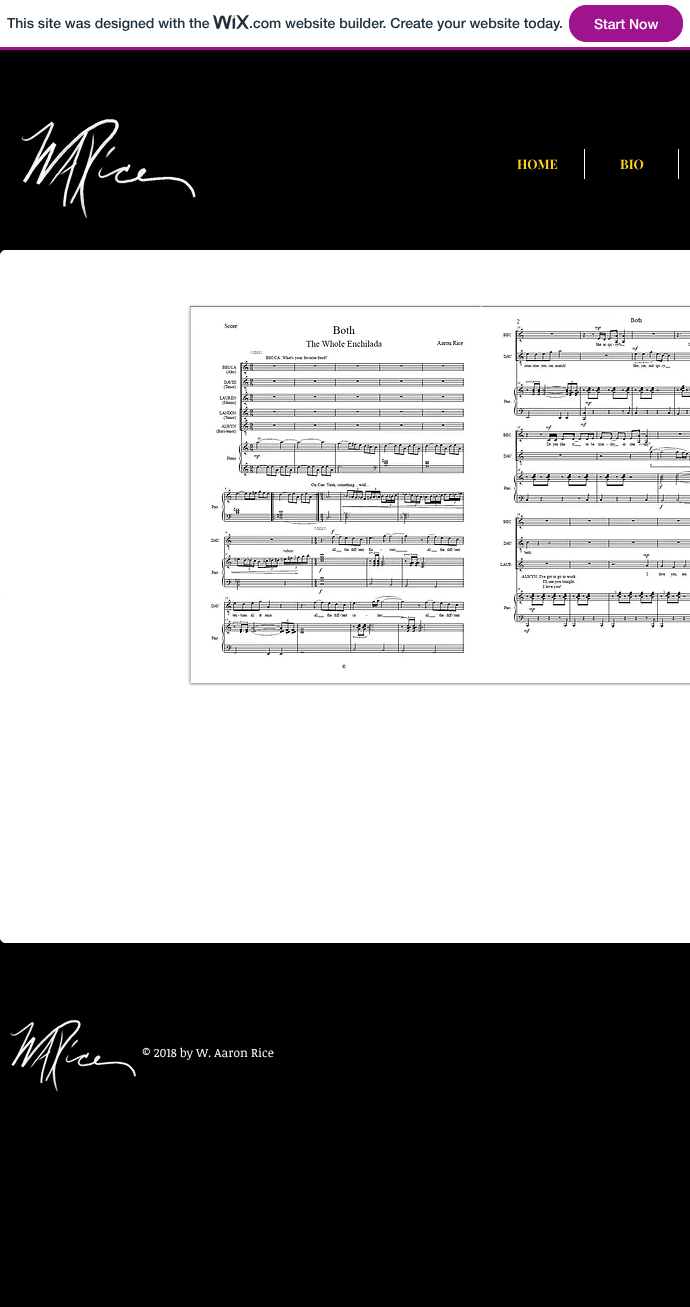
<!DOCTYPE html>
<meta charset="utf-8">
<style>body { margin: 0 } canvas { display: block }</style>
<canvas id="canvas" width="690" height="1307"></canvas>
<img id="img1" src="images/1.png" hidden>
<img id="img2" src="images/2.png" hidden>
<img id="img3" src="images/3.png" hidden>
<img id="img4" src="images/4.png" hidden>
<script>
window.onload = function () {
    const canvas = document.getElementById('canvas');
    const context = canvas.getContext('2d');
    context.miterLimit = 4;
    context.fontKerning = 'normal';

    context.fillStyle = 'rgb(255, 255, 255)';
    context.fillRect(0, 0, 690, 1307);
    context.fillStyle = 'rgb(160, 19, 142)';
    context.fillRect(0, 47, 690, 3);
    context.drawImage(document.getElementById('img1'), 213, 15, 36, 15);
    context.beginPath();
    context.roundRect(569.5, 5.5, 113, 36, 16.5);
    context.fill();
    context.strokeStyle = 'rgb(160, 19, 142)';
    context.stroke();
    context.fillStyle = 'rgb(0, 0, 0)';
    context.fillRect(0, 50, 690, 1257);
    context.drawImage(document.getElementById('img2'), 21, 119, 175, 100);
    context.fillStyle = 'rgb(255, 255, 255)';
    context.fillRect(584, 149, 1, 30);
    context.fillRect(678, 149, 1, 30);
    context.beginPath();
    context.roundRect(0.5, 250.5, 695, 692, 4.5);
    context.fill();
    context.strokeStyle = 'rgb(255, 255, 255)';
    context.stroke();
    context.fillStyle = 'rgba(0, 0, 0, 0.5)';
    context.filter = 'blur(1.5px)';
    context.beginPath();
    context.rect(190, 307, 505, 377);
    context.fill();
    context.filter = 'none';
    context.drawImage(document.getElementById('img3'), 190, 306, 500, 377);
    context.drawImage(document.getElementById('img4'), 10, 1020, 126, 72);
    context.font = '500 14px "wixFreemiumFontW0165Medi"';
    context.fillStyle = 'rgb(32, 48, 60)';
    context.fillText('This site was designed with the', 7, 28);
    context.fillText('.com website builder. Create your website today.', 249, 28);
    context.fillStyle = 'rgb(255, 255, 255)';
    context.fillText('Start Now', 594, 29);
    context.font = 'bold 13px Playfair Display';
    context.fillStyle = 'rgb(250, 210, 30)';
    context.fillText('HOME', 517, 169);
    context.fillText('BIO', 620, 169);
    context.font = '12px Noticia Text';
    context.fillStyle = 'rgb(255, 255, 255)';
    context.fillText('© 2018 by W. Aaron Rice', 142, 1057);
};
</script>
